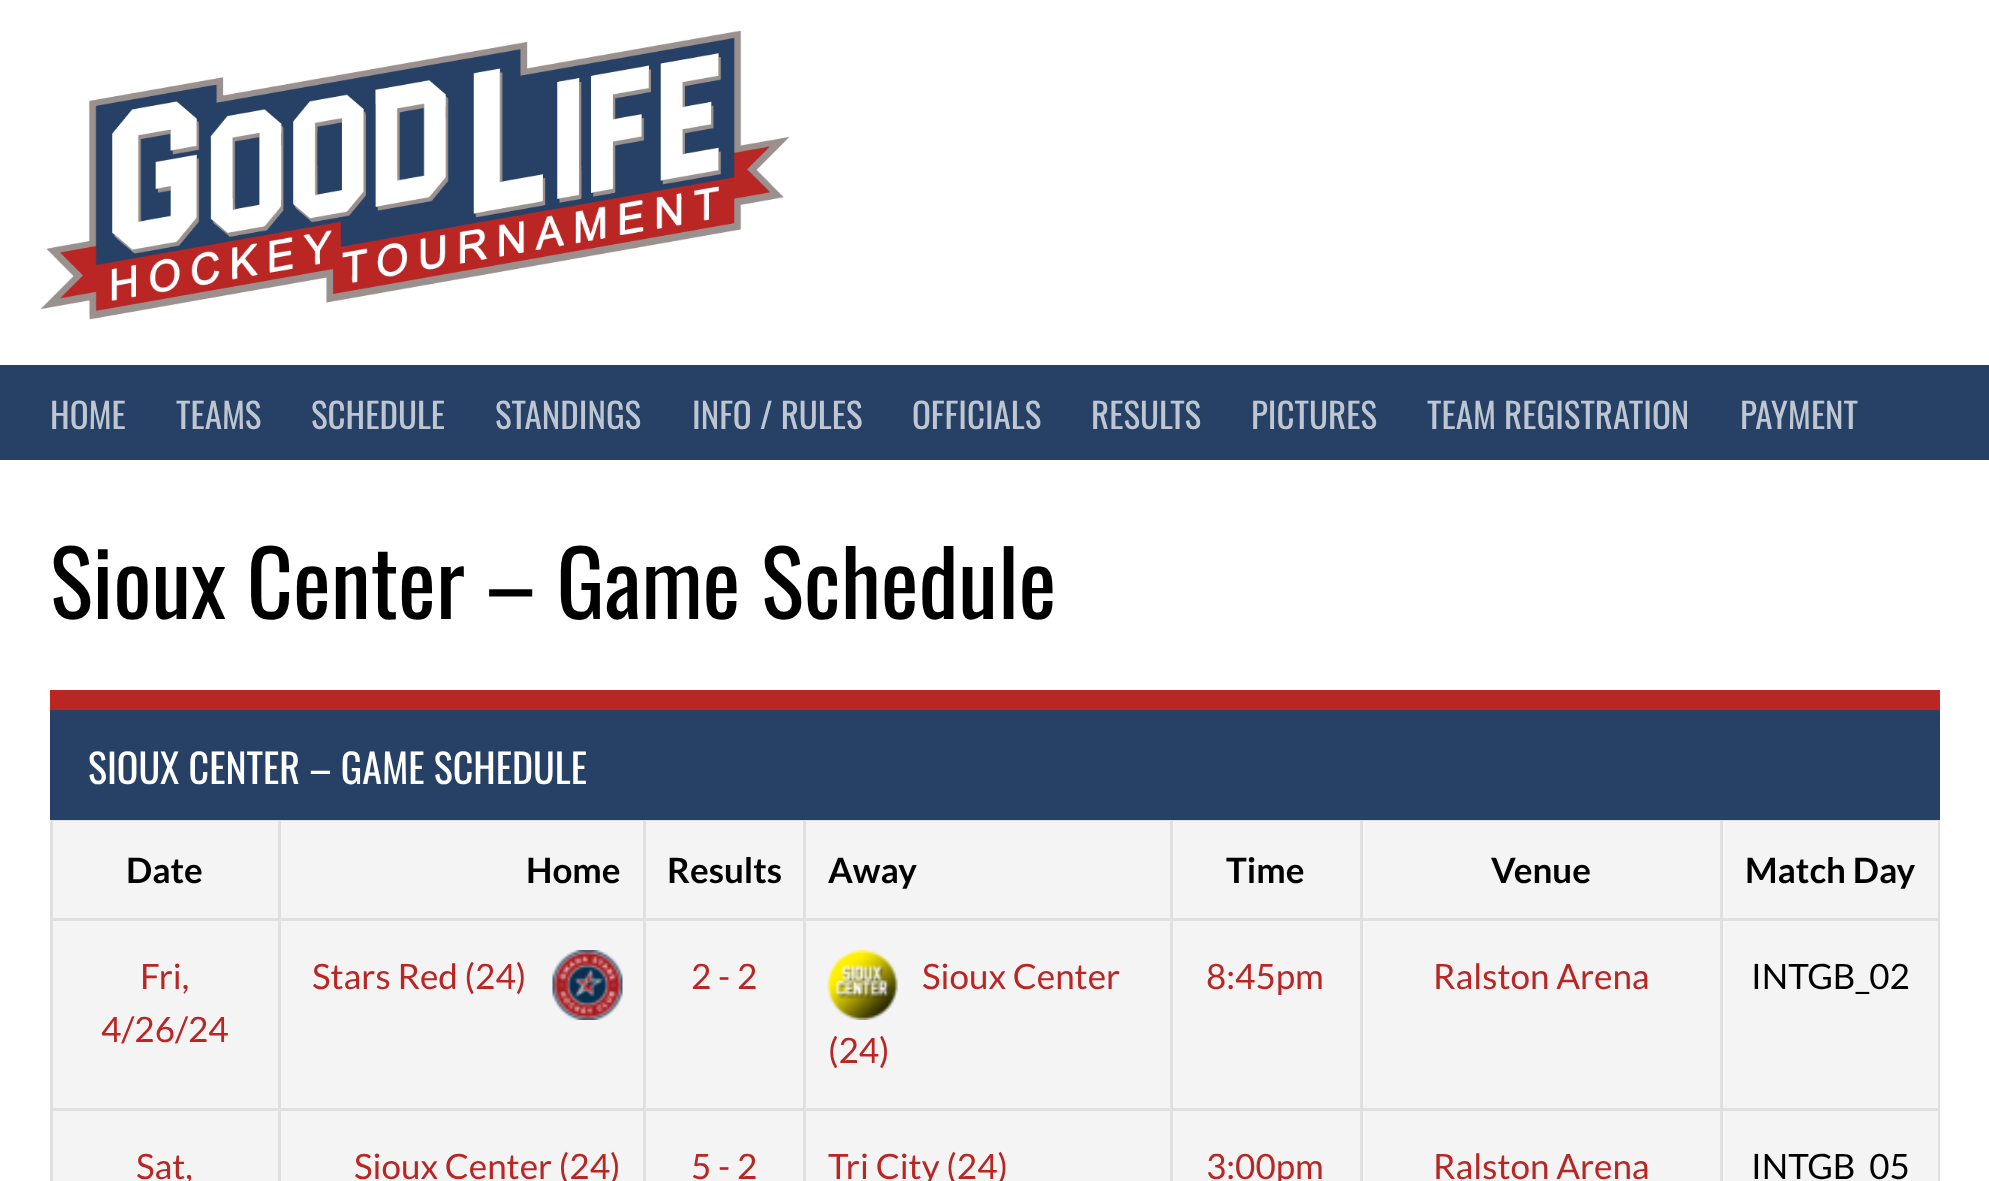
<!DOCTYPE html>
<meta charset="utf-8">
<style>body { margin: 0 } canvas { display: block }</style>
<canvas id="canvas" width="1989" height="1181"></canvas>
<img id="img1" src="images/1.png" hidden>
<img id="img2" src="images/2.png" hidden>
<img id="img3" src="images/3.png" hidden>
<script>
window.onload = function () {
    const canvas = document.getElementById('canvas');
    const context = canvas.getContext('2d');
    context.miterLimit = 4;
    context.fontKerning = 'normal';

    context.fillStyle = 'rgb(255, 255, 255)';
    context.fillRect(0, 0, 1989, 1181);
    context.drawImage(document.getElementById('img1'), 40, 30, 750, 290);
    context.fillStyle = 'rgb(38, 65, 101)';
    context.fillRect(0, 365, 1989, 95);
    context.fillStyle = 'rgb(224, 224, 224)';
    context.fillRect(50, 820, 1890, 1);
    context.fillRect(1938, 818, 2, 363);
    context.fillRect(50, 818, 3, 363);
    context.fillStyle = 'rgb(244, 244, 244)';
    context.fillRect(53, 821, 1885, 360);
    context.fillStyle = 'rgb(224, 224, 224)';
    context.fillRect(1720, 918, 220, 3);
    context.fillRect(1720, 1108, 220, 3);
    context.fillRect(1720, 1108, 3, 73);
    context.fillRect(1360, 1108, 363, 3);
    context.fillRect(1720, 918, 3, 192);
    context.fillRect(1360, 918, 363, 3);
    context.fillRect(1360, 1108, 3, 73);
    context.fillRect(1170, 1108, 193, 3);
    context.fillRect(1360, 918, 3, 192);
    context.fillRect(1170, 918, 193, 3);
    context.fillRect(1170, 1108, 3, 73);
    context.fillRect(803, 1108, 370, 3);
    context.fillRect(1170, 918, 3, 192);
    context.fillRect(803, 918, 370, 3);
    context.fillRect(803, 1108, 3, 73);
    context.fillRect(643, 1108, 162, 3);
    context.fillRect(803, 918, 3, 192);
    context.fillRect(643, 918, 162, 3);
    context.fillRect(643, 1108, 3, 73);
    context.fillRect(278, 1108, 367, 3);
    context.fillRect(643, 918, 3, 192);
    context.fillRect(278, 918, 367, 3);
    context.fillRect(278, 1108, 3, 73);
    context.fillRect(50, 1108, 230, 3);
    context.fillRect(278, 918, 3, 192);
    context.fillRect(50, 918, 230, 3);
    context.fillRect(278, 818, 3, 102);
    context.fillRect(643, 818, 3, 102);
    context.fillRect(803, 818, 3, 102);
    context.fillRect(1170, 818, 3, 102);
    context.fillRect(1360, 818, 3, 102);
    context.fillRect(1720, 818, 3, 102);
    context.fillStyle = 'rgb(38, 65, 101)';
    context.fillRect(50, 710, 1890, 110);
    context.fillStyle = 'rgb(185, 38, 36)';
    context.fillRect(50, 690, 1890, 20);
    context.drawImage(document.getElementById('img2'), 552, 950, 71, 70);
    context.drawImage(document.getElementById('img3'), 827, 950, 71, 70);
    context.font = '35px Oswald';
    context.fillStyle = 'rgb(190, 198, 209)';
    context.fillText('HOME', 50, 429);
    context.fillText('TEAMS', 176, 429);
    context.fillText('SCHEDULE', 311, 429);
    context.fillText('STANDINGS', 495, 429);
    context.fillText('INFO / RULES', 692, 429);
    context.fillText('OFFICIALS', 912, 429);
    context.fillText('RESULTS', 1091, 429);
    context.fillText('PICTURES', 1251, 429);
    context.fillText('TEAM REGISTRATION', 1427, 429);
    context.fillText('PAYMENT', 1740, 429);
    context.font = '90px Oswald';
    context.fillStyle = 'rgb(0, 0, 0)';
    context.fillText('Sioux Center – Game Schedule', 50, 619);
    context.font = '40px Oswald';
    context.fillStyle = 'rgb(255, 255, 255)';
    context.fillText('SIOUX CENTER – GAME SCHEDULE', 88, 784);
    context.font = 'bold 35px Lato';
    context.fillStyle = 'rgb(0, 0, 0)';
    context.fillText('Date', 126, 883);
    context.fillStyle = 'rgb(244, 244, 244)';
    context.beginPath();
    context.moveTo(214.5, 862);
    context.lineTo(197, 862);
    context.lineTo(205.5, 874.5);
    context.closePath();
    context.moveTo(210.5, 874.5);
    context.lineTo(228, 874.5);
    context.lineTo(219.5, 862);
    context.closePath();
    context.fill();
    context.fillStyle = 'rgb(0, 0, 0)';
    context.fillText('Home', 526, 883);
    context.fillText('Results', 667, 883);
    context.fillText('Away', 828, 883);
    context.fillText('Time', 1226, 883);
    context.fillText('Venue', 1491, 883);
    context.fillText('Match Day', 1745, 883);
    context.font = '35px Lato';
    context.fillStyle = 'rgb(185, 38, 36)';
    context.fillText('Fri,', 140, 989);
    context.fillText('4/26/24', 101, 1042);
    context.fillText('Stars Red (24)', 312, 989);
    context.fillText('2 - 2', 691, 989);
    context.fillText('Sioux Center', 922, 989);
    context.fillText('(24)', 828, 1063);
    context.fillText('8:45pm', 1206, 989);
    context.fillText('Ralston Arena', 1433, 989);
    context.fillStyle = 'rgb(0, 0, 0)';
    context.fillText('INTGB_02', 1751, 989);
    context.fillStyle = 'rgb(185, 38, 36)';
    context.fillText('Sat,', 136, 1179);
    context.fillText('Sioux Center (24)', 354, 1179);
    context.fillText('5 - 2', 691, 1179);
    context.fillText('Tri City (24)', 828, 1179);
    context.fillText('3:00pm', 1206, 1179);
    context.fillText('Ralston Arena', 1433, 1179);
    context.fillStyle = 'rgb(0, 0, 0)';
    context.fillText('INTGB_05', 1751, 1179);
};
</script>
